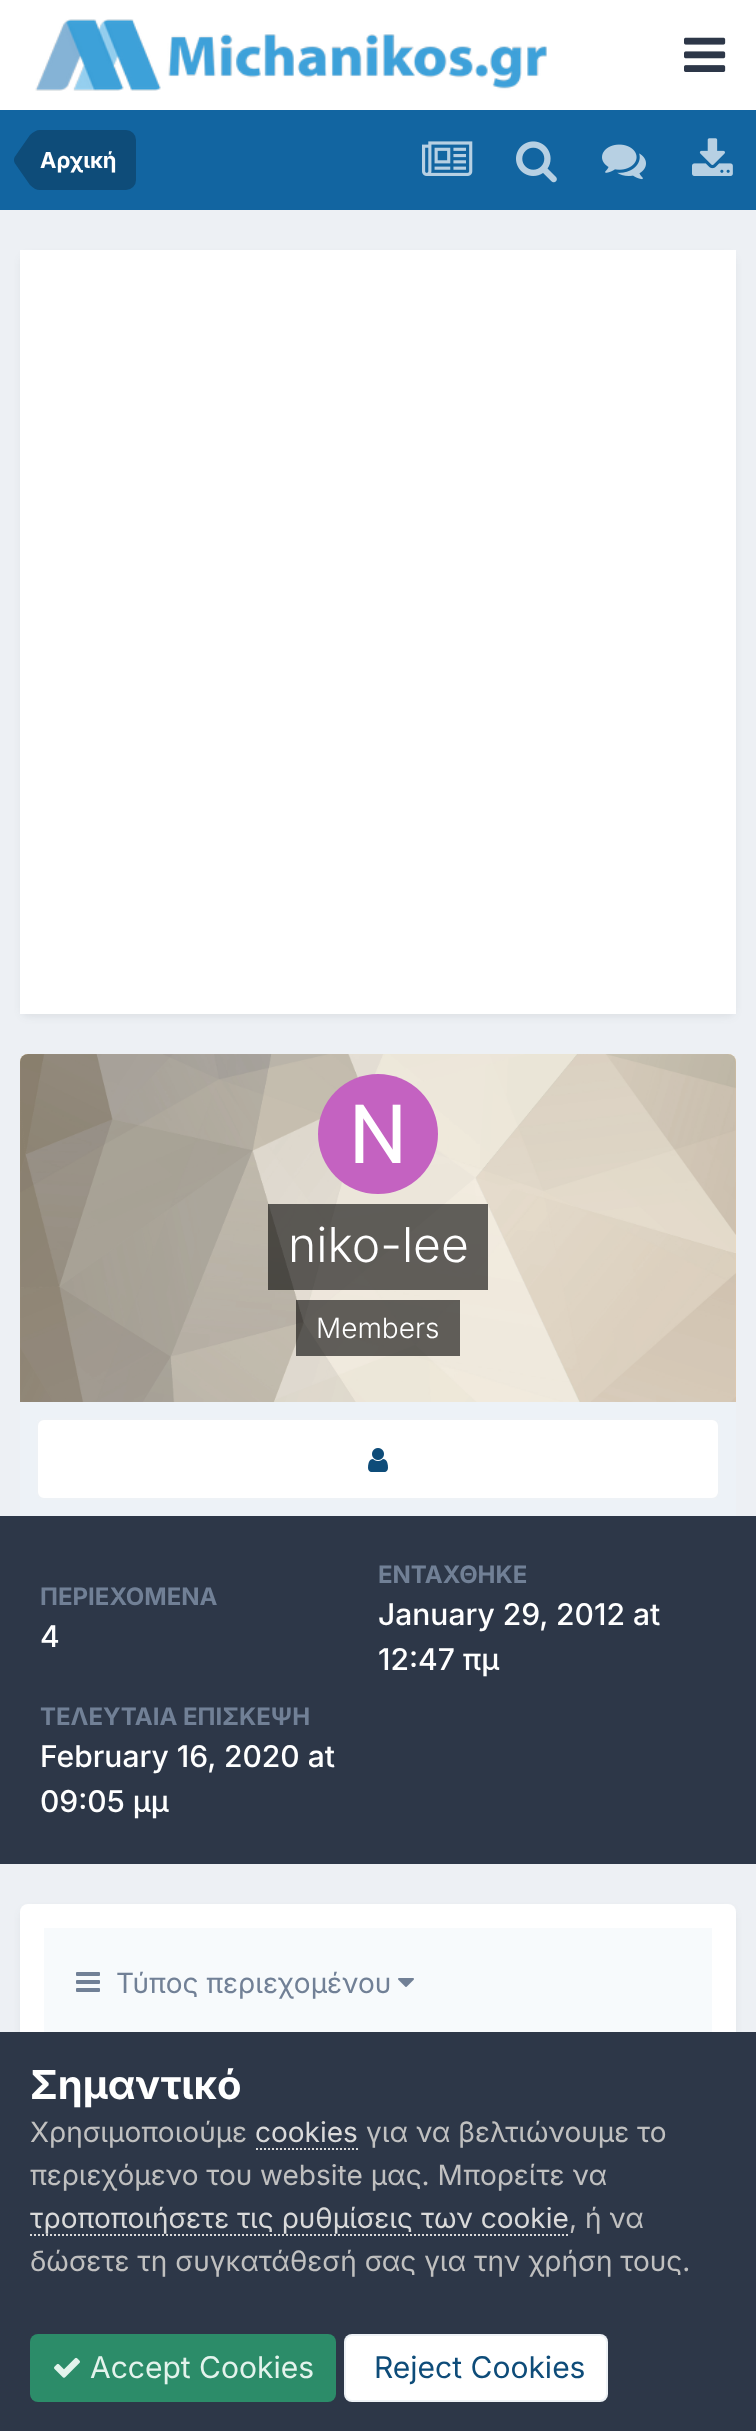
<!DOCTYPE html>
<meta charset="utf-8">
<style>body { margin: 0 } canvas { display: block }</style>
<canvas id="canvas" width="756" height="2431"></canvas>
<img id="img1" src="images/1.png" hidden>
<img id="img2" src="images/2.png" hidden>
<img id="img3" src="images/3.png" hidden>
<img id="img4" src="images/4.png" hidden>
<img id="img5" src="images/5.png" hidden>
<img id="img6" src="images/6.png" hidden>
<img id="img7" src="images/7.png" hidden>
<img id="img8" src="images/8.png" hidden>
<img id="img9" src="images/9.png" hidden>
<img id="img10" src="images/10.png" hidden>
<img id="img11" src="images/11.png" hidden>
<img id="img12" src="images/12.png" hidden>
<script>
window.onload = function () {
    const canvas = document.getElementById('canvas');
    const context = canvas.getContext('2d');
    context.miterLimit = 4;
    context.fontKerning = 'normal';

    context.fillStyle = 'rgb(237, 240, 244)';
    context.fillRect(0, 0, 756, 2431);
    context.fillStyle = 'rgb(255, 255, 255)';
    context.fillRect(0, 0, 756, 110);
    context.drawImage(document.getElementById('img1'), 35, 19, 512, 72);
    context.drawImage(document.getElementById('img2'), 684, 37, 42, 35);
    context.fillStyle = 'rgb(18, 101, 161)';
    context.fillRect(0, 110, 756, 100);
    context.fillStyle = 'rgb(14, 76, 121)';
    context.beginPath();
    context.roundRect(40, 130, 96, 60, [0, 10, 10, 0]);
    context.fill();
    context.beginPath();
    context.moveTo(40, 160);
    context.lineTo(40, 190);
    context.bezierCurveTo(36.5, 190, 33, 188, 30, 185);
    context.lineTo(15, 163.5);
    context.bezierCurveTo(14.5, 162.5, 14, 161.5, 14, 160);
    context.closePath();
    context.moveTo(40, 160);
    context.lineTo(14, 160);
    context.bezierCurveTo(14, 158.5, 14.5, 157.5, 15, 156.5);
    context.lineTo(30, 135);
    context.bezierCurveTo(33, 132, 36.5, 130, 40, 130);
    context.closePath();
    context.fill();
    context.drawImage(document.getElementById('img3'), 422, 141, 51, 35);
    context.drawImage(document.getElementById('img4'), 516, 141, 41, 42);
    context.drawImage(document.getElementById('img5'), 602, 144, 44, 36);
    context.drawImage(document.getElementById('img6'), 692, 138, 41, 38);
    context.fillStyle = 'rgba(45, 55, 72, 0.1)';
    context.filter = 'blur(4px)';
    context.beginPath();
    context.roundRect(22, 256, 712, 760, 6);
    context.fill();
    context.filter = 'none';
    context.fillStyle = 'rgb(255, 255, 255)';
    context.fillRect(20, 250, 716, 764);
    context.fillStyle = 'rgb(255, 218, 153)';
    context.beginPath();
    context.roundRect(20, 1054, 716, 348, [8, 8, 0, 0]);
    context.fill();
    context.drawImage(document.getElementById('img7'), 20, 1054, 716, 348);
    context.drawImage(document.getElementById('img8'), 318, 1074, 120, 120);
    context.fillStyle = 'rgba(0, 0, 0, 0.6)';
    context.fillRect(268, 1204, 220, 86);
    context.fillRect(296, 1300, 164, 56);
    context.fillStyle = 'rgb(237, 242, 247)';
    context.fillRect(20, 1402, 716, 114);
    context.fillStyle = 'rgb(255, 255, 255)';
    context.beginPath();
    context.roundRect(36, 1418, 684, 82, 8);
    context.fill();
    context.beginPath();
    context.roundRect(37, 1419, 682, 80, 7);
    context.strokeStyle = 'rgba(14, 76, 121, 0.07)';
    context.lineWidth = 2;
    context.stroke();
    context.drawImage(document.getElementById('img9'), 368, 1448, 20, 24);
    context.fillStyle = 'rgb(45, 55, 72)';
    context.fillRect(0, 1516, 756, 348);
    context.fillStyle = 'rgba(45, 55, 72, 0.1)';
    context.filter = 'blur(4px)';
    context.beginPath();
    context.roundRect(22, 1910, 712, 152, 6);
    context.fill();
    context.filter = 'none';
    context.fillStyle = 'rgb(255, 255, 255)';
    context.beginPath();
    context.roundRect(20, 1904, 716, 156, 8);
    context.fill();
    context.fillStyle = 'rgb(247, 250, 252)';
    context.fillRect(44, 1928, 668, 104);
    context.drawImage(document.getElementById('img10'), 76, 1972, 24, 20);
    context.drawImage(document.getElementById('img11'), 398, 1978, 16, 9);
    context.fillStyle = 'rgb(45, 55, 72)';
    context.fillRect(0, 2032, 756, 399);
    context.beginPath();
    context.moveTo(256, 2149);
    context.lineTo(358, 2149);
    context.strokeStyle = 'rgb(218, 218, 218)';
    context.setLineDash([2, 2]);
    context.stroke();
    context.beginPath();
    context.moveTo(30, 2235);
    context.lineTo(568, 2235);
    context.stroke();
    context.fillStyle = 'rgb(44, 140, 105)';
    context.beginPath();
    context.roundRect(30, 2334, 306, 68, 8);
    context.fill();
    context.drawImage(document.getElementById('img12'), 54, 2357, 26, 21);
    context.fillStyle = 'rgb(255, 255, 255)';
    context.beginPath();
    context.roundRect(344, 2334, 264, 68, 8);
    context.fill();
    context.beginPath();
    context.roundRect(345, 2335, 262, 66, 7);
    context.strokeStyle = 'rgba(14, 76, 121, 0.07)';
    context.setLineDash([]);
    context.stroke();
    context.font = 'bold 22px Inter';
    context.fillText('Αρχική', 40, 168);
    context.font = '300 48px Inter';
    context.fillText('niko-lee', 288, 1262);
    context.font = '300 28px Inter';
    context.fillText('Members', 316, 1338);
    context.font = 'bold 24px Inter';
    context.fillStyle = 'rgb(113, 128, 150)';
    context.fillText('ΠΕΡΙΕΧΟΜΕΝΑ', 40, 1605);
    context.font = '500 30px Inter';
    context.fillStyle = 'rgb(255, 255, 255)';
    context.fillText('4', 40, 1647);
    context.font = 'bold 24px Inter';
    context.fillStyle = 'rgb(113, 128, 150)';
    context.fillText('ΕΝΤΑΧΘΗΚΕ', 378, 1583);
    context.font = '500 30px Inter';
    context.fillStyle = 'rgb(255, 255, 255)';
    context.fillText('January 29, 2012 at', 378, 1625);
    context.fillText('12:47 πμ', 378, 1670);
    context.font = 'bold 24px Inter';
    context.fillStyle = 'rgb(113, 128, 150)';
    context.fillText('ΤΕΛΕΥΤΑΙΑ ΕΠΙΣΚΕΨΗ', 40, 1725);
    context.font = '500 30px Inter';
    context.fillStyle = 'rgb(255, 255, 255)';
    context.fillText('February 16, 2020 at', 40, 1767);
    context.fillText('09:05 μμ', 40, 1812);
    context.font = '28px Inter';
    context.fillStyle = 'rgb(113, 128, 150)';
    context.fillText('Τύπος περιεχομένου', 116, 1993);
    context.font = 'bold 40px Inter';
    context.fillStyle = 'rgb(255, 255, 255)';
    context.fillText('Σημαντικό', 30, 2099);
    context.font = '28px Inter';
    context.fillStyle = 'rgb(192, 192, 192)';
    context.fillText('Χρησιμοποιούμε', 30, 2142);
    context.fillStyle = 'rgb(218, 218, 218)';
    context.fillText('cookies', 255, 2142);
    context.fillStyle = 'rgb(192, 192, 192)';
    context.fillText('για να βελτιώνουμε το', 366, 2142);
    context.fillText('περιεχόμενο του website μας. Μπορείτε να', 30, 2185);
    context.fillStyle = 'rgb(218, 218, 218)';
    context.fillText('τροποποιήσετε τις ρυθμίσεις των cookie', 30, 2228);
    context.fillStyle = 'rgb(192, 192, 192)';
    context.fillText(', ή να', 569, 2228);
    context.fillText('δώσετε τη συγκατάθεσή σας για την χρήση τους.', 30, 2271);
    context.font = '30px Inter';
    context.fillStyle = 'rgb(227, 243, 236)';
    context.fillText('Accept Cookies', 90, 2378);
    context.fillStyle = 'rgb(14, 76, 121)';
    context.fillText('Reject Cookies', 374, 2378);
};
</script>
